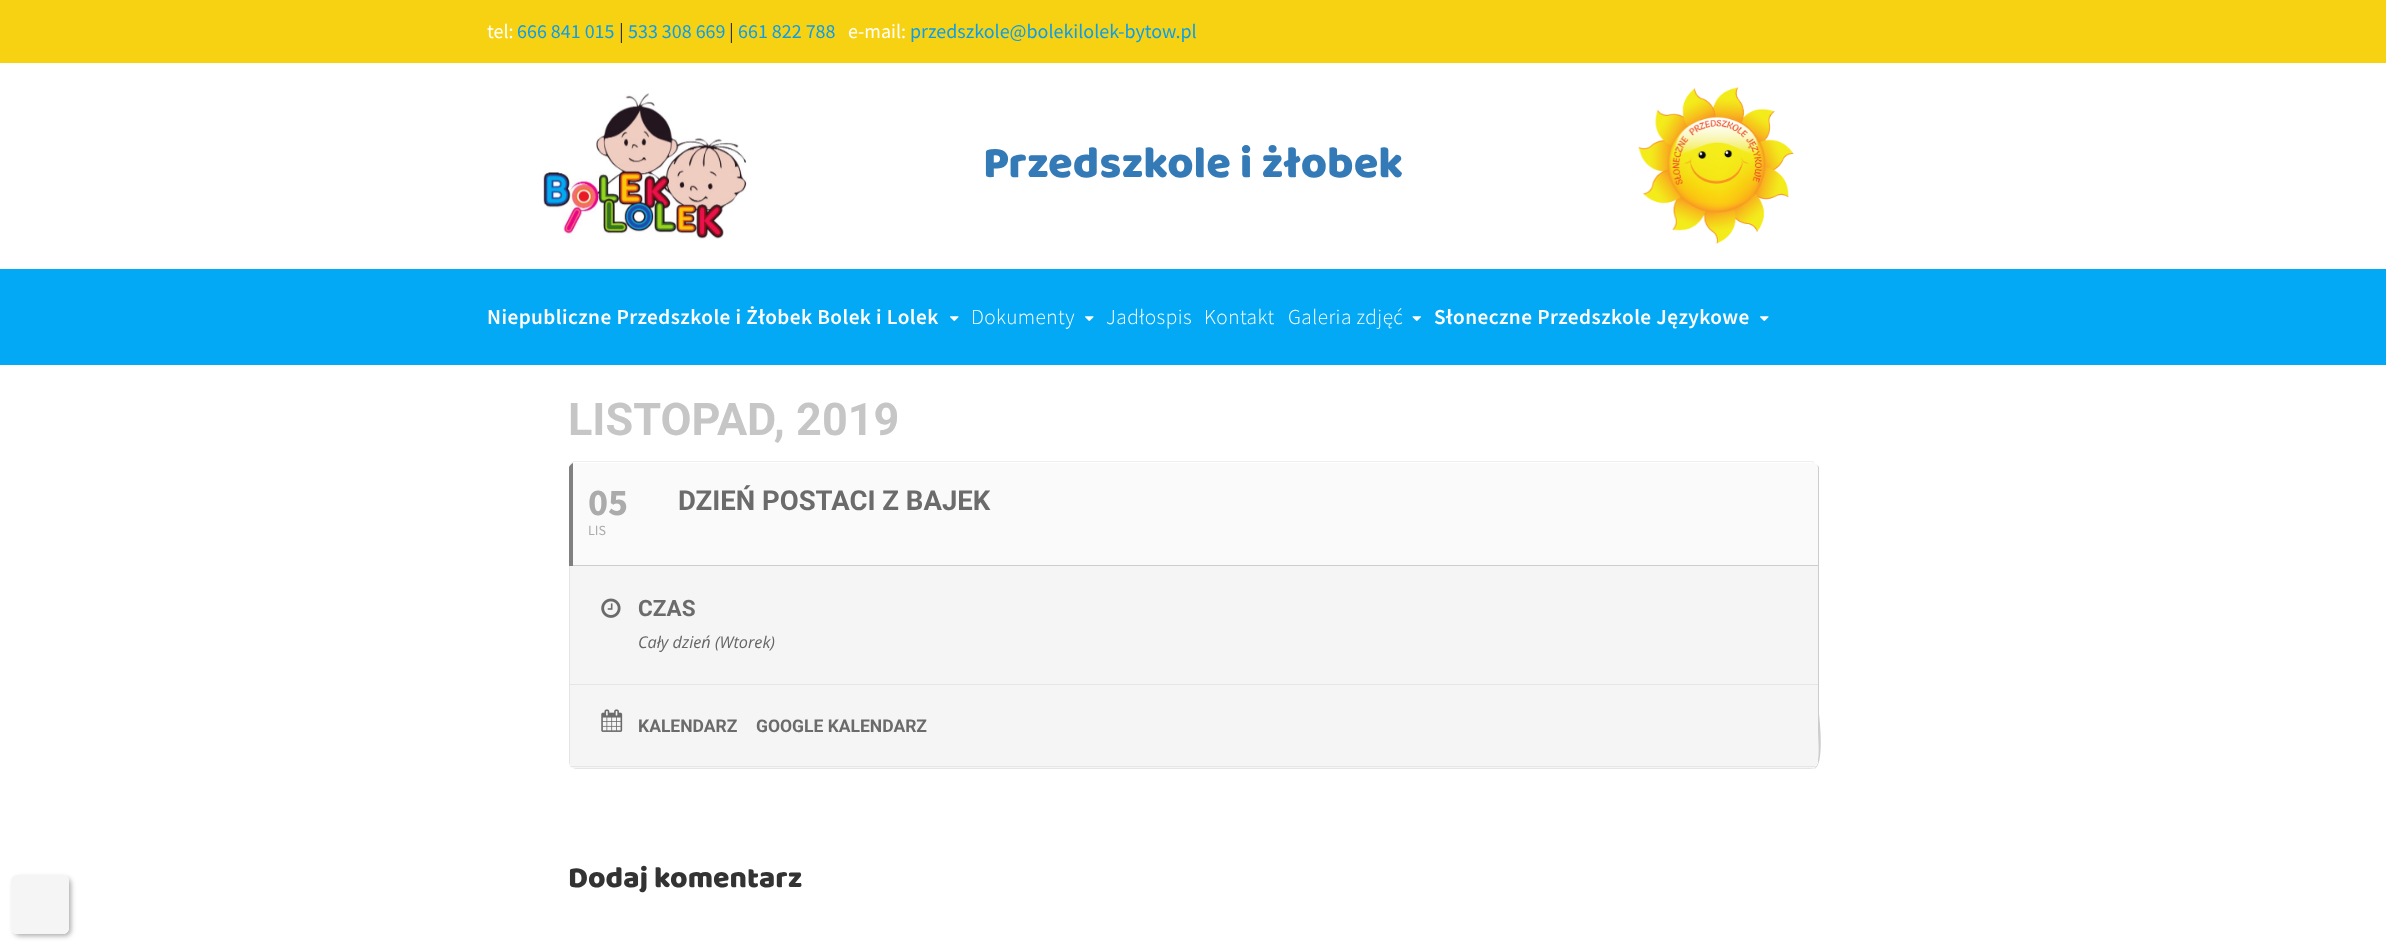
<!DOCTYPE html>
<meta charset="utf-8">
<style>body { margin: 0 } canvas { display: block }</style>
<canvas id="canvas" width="2386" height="944"></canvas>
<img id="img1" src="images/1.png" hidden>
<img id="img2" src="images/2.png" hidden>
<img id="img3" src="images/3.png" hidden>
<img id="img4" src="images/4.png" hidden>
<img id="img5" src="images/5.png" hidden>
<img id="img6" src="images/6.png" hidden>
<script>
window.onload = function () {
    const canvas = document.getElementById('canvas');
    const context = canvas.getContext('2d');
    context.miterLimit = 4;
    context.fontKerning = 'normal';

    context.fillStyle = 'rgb(255, 255, 255)';
    context.fillRect(0, 0, 2386, 944);
    context.fillStyle = 'rgb(247, 210, 18)';
    context.fillRect(0, 0, 2386, 63);
    context.drawImage(document.getElementById('img1'), 543, 93, 204, 146);
    context.drawImage(document.getElementById('img2'), 1638, 87, 156, 157);
    context.fillStyle = 'rgb(3, 169, 244)';
    context.fillRect(0, 269, 2386, 96);
    context.drawImage(document.getElementById('img3'), 950, 316, 9, 5);
    context.drawImage(document.getElementById('img3'), 1085, 316, 9, 5);
    context.drawImage(document.getElementById('img4'), 1412, 316, 9, 5);
    context.drawImage(document.getElementById('img3'), 1760, 316, 9, 5);
    context.fillStyle = 'rgb(239, 238, 238)';
    context.beginPath();
    context.moveTo(1813, 461);
    context.lineTo(574, 461);
    context.bezierCurveTo(571, 462, 569, 465, 569, 469);
    context.bezierCurveTo(569, 465, 572, 462, 576, 462);
    context.lineTo(1811, 462);
    context.bezierCurveTo(1813, 462, 1815, 463, 1816, 464);
    context.closePath();
    context.fill();
    context.fillStyle = 'rgb(205, 205, 205)';
    context.beginPath();
    context.moveTo(1816, 464);
    context.bezierCurveTo(1817, 465, 1818, 467, 1818, 469);
    context.lineTo(1818, 761);
    context.bezierCurveTo(1818, 764, 1816, 768, 1813, 769);
    context.bezierCurveTo(1826, 769, 1819, 714, 1819, 714);
    context.lineTo(1819, 467);
    context.closePath();
    context.fill();
    context.fillStyle = 'rgb(250, 250, 250)';
    context.beginPath();
    context.moveTo(569, 467);
    context.bezierCurveTo(570, 465, 571, 464, 573, 463);
    context.lineTo(1814, 463);
    context.bezierCurveTo(1816, 464, 1818, 466, 1818, 469);
    context.lineTo(1818, 566);
    context.lineTo(569, 566);
    context.closePath();
    context.fill();
    context.fillStyle = 'rgb(128, 128, 128)';
    context.beginPath();
    context.moveTo(569, 467);
    context.bezierCurveTo(570, 465, 571, 464, 573, 463);
    context.lineTo(573, 566);
    context.lineTo(569, 566);
    context.closePath();
    context.fill();
    context.fillStyle = 'rgb(205, 205, 205)';
    context.fillRect(573, 565, 1245, 1);
    context.fillStyle = 'rgb(245, 245, 245)';
    context.beginPath();
    context.moveTo(569, 566);
    context.lineTo(1818, 566);
    context.lineTo(1818, 729);
    context.bezierCurveTo(1818, 743, 1822, 769, 1811, 769);
    context.lineTo(576, 769);
    context.bezierCurveTo(573, 769, 569, 766, 569, 763);
    context.closePath();
    context.fill();
    context.fillStyle = 'rgb(229, 229, 229)';
    context.beginPath();
    context.moveTo(1814, 768);
    context.lineTo(1811, 769);
    context.lineTo(576, 769);
    context.lineTo(573, 768);
    context.closePath();
    context.fill();
    context.beginPath();
    context.moveTo(569, 566);
    context.lineTo(570, 566);
    context.lineTo(570, 765);
    context.lineTo(569, 763);
    context.closePath();
    context.fill();
    context.fillRect(570, 684, 1248, 1);
    context.drawImage(document.getElementById('img5'), 601, 598, 20, 20);
    context.fillStyle = 'rgb(245, 245, 245)';
    context.beginPath();
    context.moveTo(570, 685);
    context.lineTo(1818, 685);
    context.lineTo(1818, 761);
    context.bezierCurveTo(1818, 764, 1816, 767, 1814, 768);
    context.lineTo(573, 768);
    context.lineTo(570, 765);
    context.closePath();
    context.fill();
    context.fillStyle = 'rgb(229, 229, 229)';
    context.beginPath();
    context.moveTo(571, 767);
    context.lineTo(570, 766);
    context.lineTo(1816, 766);
    context.lineTo(1815, 767);
    context.closePath();
    context.fill();
    context.drawImage(document.getElementById('img6'), 601, 709, 22, 23);
    context.save();
    context.beginPath();
    context.moveTo(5, 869);
    context.lineTo(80, 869);
    context.lineTo(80, 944);
    context.lineTo(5, 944);
    context.closePath();
    context.moveTo(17, 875);
    context.lineTo(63, 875);
    context.bezierCurveTo(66.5, 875, 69, 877.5, 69, 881);
    context.lineTo(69, 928);
    context.bezierCurveTo(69, 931.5, 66.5, 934, 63, 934);
    context.lineTo(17, 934);
    context.bezierCurveTo(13.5, 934, 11, 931.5, 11, 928);
    context.lineTo(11, 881);
    context.bezierCurveTo(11, 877.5, 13.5, 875, 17, 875);
    context.closePath();
    context.clip('evenodd');
    context.fillStyle = 'rgba(77, 77, 77, 0.47)';
    context.filter = 'blur(2.5px)';
    context.beginPath();
    context.roundRect(14, 878, 57, 58, 6);
    context.fill();
    context.filter = 'none';
    context.restore();
    context.fillStyle = 'rgba(245, 245, 245, 0.99)';
    context.beginPath();
    context.roundRect(11, 875, 58, 59, 6);
    context.fill();
    context.font = '20px Source Sans Pro';
    context.fillStyle = 'rgb(255, 255, 255)';
    context.fillText('tel:', 487, 38);
    context.fillStyle = 'rgb(12, 157, 234)';
    context.fillText('666 841 015', 517, 38);
    context.fillStyle = 'rgb(51, 51, 51)';
    context.fillText('|', 619, 38);
    context.fillStyle = 'rgb(12, 157, 234)';
    context.fillText('533 308 669', 628, 38);
    context.fillStyle = 'rgb(51, 51, 51)';
    context.fillText('|', 729, 38);
    context.fillStyle = 'rgb(12, 157, 234)';
    context.fillText('661 822 788', 738, 38);
    context.fillStyle = 'rgb(255, 255, 255)';
    context.fillText('e-mail:', 848, 38);
    context.fillStyle = 'rgb(12, 157, 234)';
    context.fillText('przedszkole@bolekilolek-bytow.pl', 910, 38);
    context.font = '45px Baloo';
    context.fillStyle = 'rgb(51, 122, 183)';
    context.fillText('Przedszkole i żłobek', 983, 177);
    context.letterSpacing = '0.45px';
    context.font = '600 21.25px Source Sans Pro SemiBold';
    context.fillStyle = 'rgb(255, 255, 255)';
    context.fillText('Niepubliczne Przedszkole i Żłobek Bolek i Lolek', 487, 324);
    context.font = '300 21.25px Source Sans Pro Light';
    context.fillText('Dokumenty', 971, 324);
    context.fillText('Jadłospis', 1106, 324);
    context.fillText('Kontakt', 1204, 324);
    context.fillText('Galeria zdjęć', 1288, 324);
    context.font = '600 21.25px Source Sans Pro SemiBold';
    context.fillText('Słoneczne Przedszkole Językowe', 1434, 324);
    context.letterSpacing = '0px';
    context.font = 'bold 45px Roboto';
    context.fillStyle = 'rgb(198, 198, 198)';
    context.fillText('LISTOPAD, 2019', 568, 435);
    context.font = 'bold 38px Source Sans Pro';
    context.fillStyle = 'rgb(171, 171, 171)';
    context.fillText('05', 588, 515);
    context.font = '14px Source Sans Pro';
    context.fillText('LIS', 588, 535);
    context.font = 'bold 27.5px Roboto';
    context.fillStyle = 'rgb(107, 107, 107)';
    context.fillText('DZIEŃ POSTACI Z BAJEK', 678, 510);
    context.font = 'bold 22.5px Roboto';
    context.fillText('CZAS', 638, 616);
    context.font = 'italic 16.25px Open Sans';
    context.fillStyle = 'rgb(101, 101, 101)';
    context.fillText('Cały dzień (Wtorek)', 638, 648);
    context.font = 'bold 17.5px Roboto';
    context.fillStyle = 'rgb(107, 107, 107)';
    context.fillText('KALENDARZ', 638, 732);
    context.fillText('GOOGLE KALENDARZ', 756, 732);
    context.font = '30px Baloo';
    context.fillStyle = 'rgb(51, 51, 51)';
    context.fillText('Dodaj komentarz', 568, 887);
};
</script>
